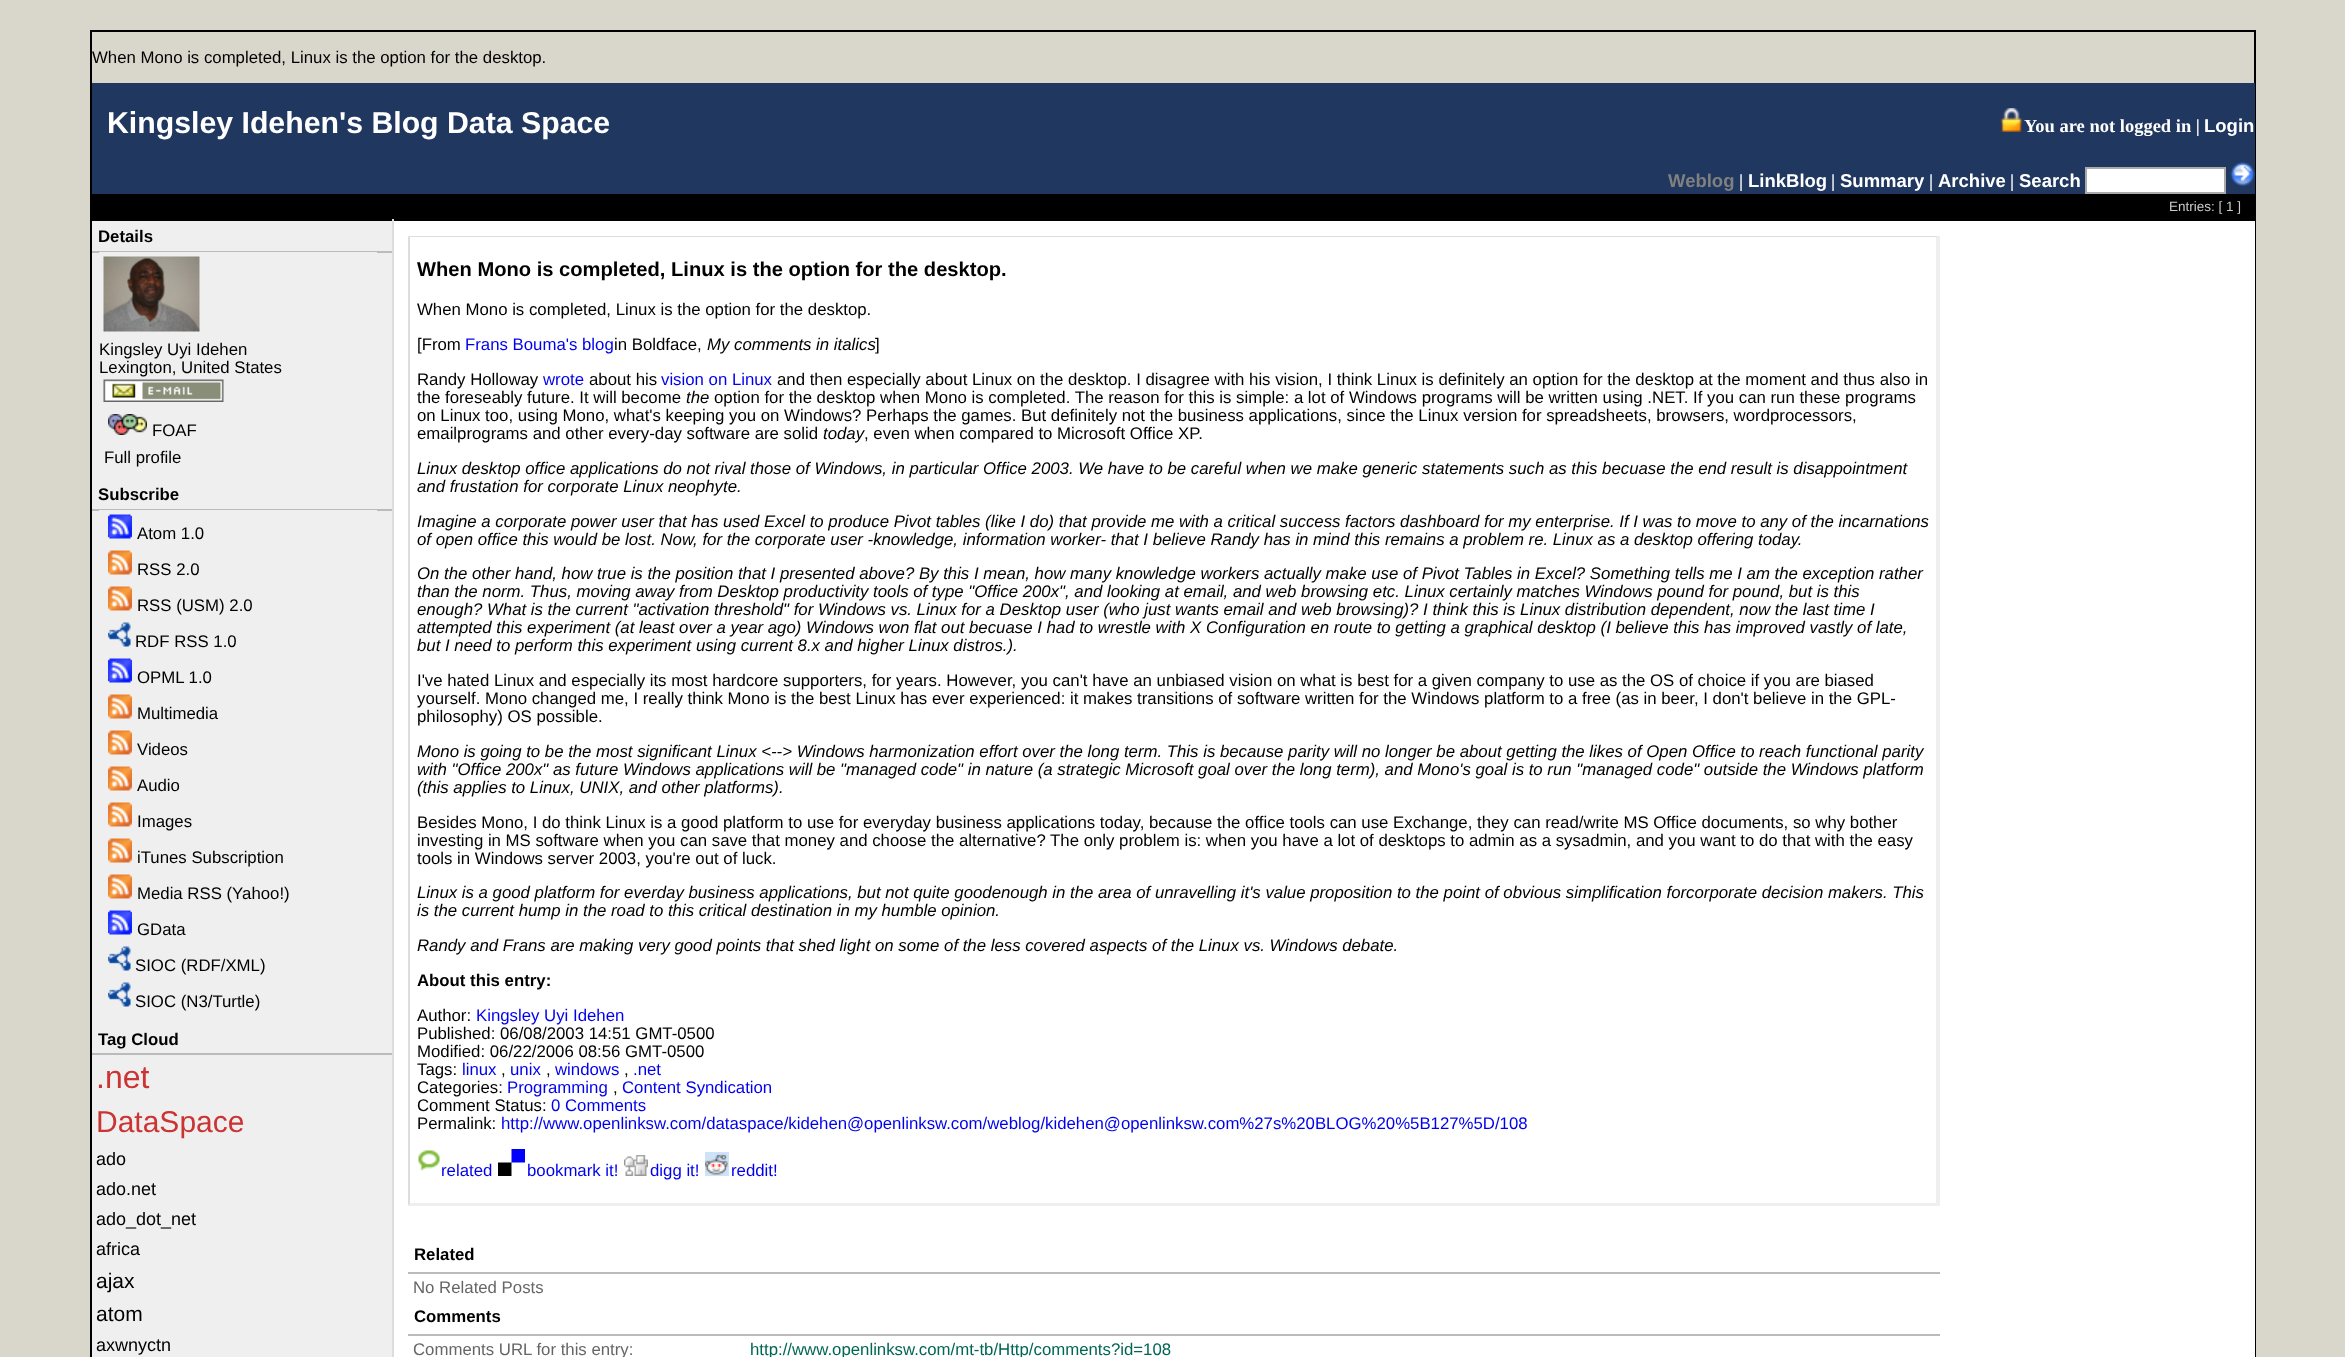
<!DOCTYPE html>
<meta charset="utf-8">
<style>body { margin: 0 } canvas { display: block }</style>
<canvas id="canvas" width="2345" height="1357"></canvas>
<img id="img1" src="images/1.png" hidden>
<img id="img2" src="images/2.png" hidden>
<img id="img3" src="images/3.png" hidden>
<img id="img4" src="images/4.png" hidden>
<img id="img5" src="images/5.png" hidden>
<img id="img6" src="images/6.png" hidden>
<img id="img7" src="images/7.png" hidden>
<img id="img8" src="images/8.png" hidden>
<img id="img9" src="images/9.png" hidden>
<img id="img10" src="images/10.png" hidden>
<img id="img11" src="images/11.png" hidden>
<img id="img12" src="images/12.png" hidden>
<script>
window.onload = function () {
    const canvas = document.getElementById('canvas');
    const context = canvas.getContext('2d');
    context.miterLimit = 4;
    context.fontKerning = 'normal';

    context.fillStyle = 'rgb(217, 214, 203)';
    context.fillRect(0, 0, 2345, 1357);
    context.strokeStyle = 'rgb(0, 0, 0)';
    context.lineWidth = 2;
    context.strokeRect(91, 31, 2164, 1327);
    context.fillStyle = 'rgb(32, 55, 95)';
    context.fillRect(92, 83, 2163, 111);
    context.drawImage(document.getElementById('img1'), 2000, 108, 23, 24);
    context.fillStyle = 'rgb(255, 255, 255)';
    context.beginPath();
    context.rect(2086, 168, 139, 25);
    context.fill();
    context.strokeStyle = 'rgb(170, 170, 170)';
    context.stroke();
    context.drawImage(document.getElementById('img2'), 2230, 162, 25, 24);
    context.fillStyle = 'rgb(0, 0, 0)';
    context.fillRect(92, 194, 2162, 25);
    context.fillRect(92, 219, 2164, 2);
    context.fillStyle = 'rgb(239, 239, 239)';
    context.fillRect(92, 221, 300, 1136);
    context.fillStyle = 'rgb(221, 221, 221)';
    context.fillRect(392, 219, 2, 1138);
    context.fillStyle = 'rgb(187, 187, 187)';
    context.fillRect(92, 251, 300, 2);
    context.strokeStyle = 'rgb(239, 239, 239)';
    context.strokeRect(100, 253, 276, 85);
    context.drawImage(document.getElementById('img3'), 103, 256, 97, 76);
    context.drawImage(document.getElementById('img4'), 103, 379, 121, 23);
    context.drawImage(document.getElementById('img5'), 108, 414, 39, 21);
    context.fillRect(92, 509, 300, 2);
    context.strokeRect(100, 511, 276, 34);
    context.drawImage(document.getElementById('img6'), 108, 514, 24, 25);
    context.drawImage(document.getElementById('img7'), 108, 550, 24, 25);
    context.drawImage(document.getElementById('img7'), 108, 586, 24, 25);
    context.drawImage(document.getElementById('img8'), 108, 622, 23, 25);
    context.drawImage(document.getElementById('img6'), 108, 658, 24, 25);
    context.drawImage(document.getElementById('img7'), 108, 694, 24, 25);
    context.drawImage(document.getElementById('img7'), 108, 730, 24, 25);
    context.drawImage(document.getElementById('img7'), 108, 766, 24, 25);
    context.drawImage(document.getElementById('img7'), 108, 802, 24, 25);
    context.drawImage(document.getElementById('img7'), 108, 838, 24, 25);
    context.drawImage(document.getElementById('img7'), 108, 874, 24, 25);
    context.drawImage(document.getElementById('img6'), 108, 910, 24, 25);
    context.drawImage(document.getElementById('img8'), 108, 946, 23, 25);
    context.drawImage(document.getElementById('img8'), 108, 982, 23, 25);
    context.fillRect(92, 1053, 300, 2);
    context.fillStyle = 'rgb(255, 255, 255)';
    context.fillRect(394, 221, 1861, 1136);
    context.fillStyle = 'rgb(221, 221, 221)';
    context.beginPath();
    context.moveTo(408, 236);
    context.lineTo(1940, 236);
    context.lineTo(1936, 237);
    context.lineTo(410, 237);
    context.closePath();
    context.fill();
    context.fillStyle = 'rgb(239, 239, 239)';
    context.beginPath();
    context.moveTo(1940, 236);
    context.lineTo(1940, 1206);
    context.lineTo(1936, 1203);
    context.lineTo(1936, 237);
    context.closePath();
    context.fill();
    context.beginPath();
    context.moveTo(1940, 1206);
    context.lineTo(408, 1206);
    context.lineTo(410, 1203);
    context.lineTo(1936, 1203);
    context.closePath();
    context.fill();
    context.fillStyle = 'rgb(221, 221, 221)';
    context.beginPath();
    context.moveTo(408, 1206);
    context.lineTo(408, 236);
    context.lineTo(410, 237);
    context.lineTo(410, 1203);
    context.closePath();
    context.fill();
    context.drawImage(document.getElementById('img9'), 418, 1150, 22, 21);
    context.drawImage(document.getElementById('img10'), 498, 1149, 27, 27);
    context.drawImage(document.getElementById('img11'), 624, 1155, 24, 21);
    context.drawImage(document.getElementById('img12'), 705, 1152, 24, 24);
    context.fillStyle = 'rgb(187, 187, 187)';
    context.fillRect(408, 1272, 1532, 2);
    context.fillRect(408, 1334, 1532, 2);
    context.font = '16.8px Liberation Sans';
    context.fillStyle = 'rgb(0, 0, 0)';
    context.fillText('When Mono is completed, Linux is the option for the desktop.', 92, 63);
    context.font = 'bold 30.25px Liberation Sans';
    context.fillStyle = 'rgb(255, 255, 255)';
    context.fillText('Kingsley Idehen\'s Blog Data Space', 107, 133);
    context.font = 'bold 18.5px Liberation Serif';
    context.fillText('You are not logged in |', 2024, 132);
    context.font = 'bold 18.5px Liberation Sans';
    context.fillText('Login', 2204, 132);
    context.fillStyle = 'rgb(128, 128, 128)';
    context.fillText('Weblog', 1668, 187);
    context.font = 'bold 18.5px Liberation Serif';
    context.fillStyle = 'rgb(255, 255, 255)';
    context.fillText('|', 1739, 187);
    context.font = 'bold 18.5px Liberation Sans';
    context.fillText('LinkBlog', 1748, 187);
    context.font = 'bold 18.5px Liberation Serif';
    context.fillText('|', 1831, 187);
    context.font = 'bold 18.5px Liberation Sans';
    context.fillText('Summary', 1840, 187);
    context.font = 'bold 18.5px Liberation Serif';
    context.fillText('|', 1929, 187);
    context.font = 'bold 18.5px Liberation Sans';
    context.fillText('Archive', 1938, 187);
    context.font = 'bold 18.5px Liberation Serif';
    context.fillText('|', 2010, 187);
    context.font = 'bold 18.5px Liberation Sans';
    context.fillText('Search', 2019, 187);
    context.font = '13.5px Liberation Sans';
    context.fillStyle = 'rgb(204, 204, 204)';
    context.fillText('Entries: [ 1 ]', 2169, 211);
    context.font = 'bold 16.8px Liberation Sans';
    context.fillStyle = 'rgb(0, 0, 0)';
    context.fillText('Details', 98, 242);
    context.font = '16.8px Liberation Sans';
    context.fillText('Kingsley Uyi Idehen', 99, 355);
    context.fillText('Lexington, United States', 99, 373);
    context.fillText('FOAF', 152, 436);
    context.fillText('Full profile', 104, 463);
    context.font = 'bold 16.8px Liberation Sans';
    context.fillText('Subscribe', 98, 500);
    context.font = '16.8px Liberation Sans';
    context.fillText('Atom 1.0', 137, 539);
    context.fillText('RSS 2.0', 137, 575);
    context.fillText('RSS (USM) 2.0', 137, 611);
    context.fillText('RDF RSS 1.0', 135, 647);
    context.fillText('OPML 1.0', 137, 683);
    context.fillText('Multimedia', 137, 719);
    context.fillText('Videos', 137, 755);
    context.fillText('Audio', 137, 791);
    context.fillText('Images', 137, 827);
    context.fillText('iTunes Subscription', 137, 863);
    context.fillText('Media RSS (Yahoo!)', 137, 899);
    context.fillText('GData', 137, 935);
    context.fillText('SIOC (RDF/XML)', 135, 971);
    context.fillText('SIOC (N3/Turtle)', 135, 1007);
    context.font = 'bold 16.8px Liberation Sans';
    context.fillText('Tag Cloud', 98, 1045);
    context.font = '32px Liberation Sans';
    context.fillStyle = 'rgb(204, 51, 51)';
    context.fillText('.net', 96, 1088);
    context.font = '30px Liberation Sans';
    context.fillText('DataSpace', 96, 1132);
    context.font = '18px Liberation Sans';
    context.fillStyle = 'rgb(0, 0, 0)';
    context.fillText('ado', 96, 1165);
    context.fillText('ado.net', 96, 1195);
    context.fillText('ado_dot_net', 96, 1225);
    context.fillText('africa', 96, 1255);
    context.font = '21px Liberation Sans';
    context.fillText('ajax', 96, 1288);
    context.fillText('atom', 96, 1321);
    context.font = '18px Liberation Sans';
    context.fillText('axwnyctn', 96, 1351);
    context.font = 'bold 20.15px Liberation Sans';
    context.fillText('When Mono is completed, Linux is the option for the desktop.', 417, 276);
    context.font = '16.8px Liberation Sans';
    context.fillText('When Mono is completed, Linux is the option for the desktop.', 417, 315);
    context.fillText('[From', 417, 350);
    context.fillStyle = 'rgb(0, 0, 238)';
    context.fillText('Frans Bouma\'s blog', 465, 350);
    context.fillStyle = 'rgb(0, 0, 0)';
    context.fillText('in Boldface,', 614, 350);
    context.font = 'italic 16.8px Liberation Sans';
    context.fillText('My comments in italics', 707, 350);
    context.font = '16.8px Liberation Sans';
    context.fillText(']', 875, 350);
    context.fillText('Randy Holloway', 417, 385);
    context.fillStyle = 'rgb(0, 0, 238)';
    context.fillText('wrote', 543, 385);
    context.fillStyle = 'rgb(0, 0, 0)';
    context.fillText('about his', 589, 385);
    context.fillStyle = 'rgb(0, 0, 238)';
    context.fillText('vision on Linux', 661, 385);
    context.fillStyle = 'rgb(0, 0, 0)';
    context.fillText('and then especially about Linux on the desktop. I disagree with his vision, I think Linux is definitely an option for the desktop at the moment and thus also in', 777, 385);
    context.fillText('the foreseably future. It will become', 417, 403);
    context.font = 'italic 16.8px Liberation Sans';
    context.fillText('the', 686, 403);
    context.font = '16.8px Liberation Sans';
    context.fillText('option for the desktop when Mono is completed. The reason for this is simple: a lot of Windows programs will be written using .NET. If you can run these programs', 714, 403);
    context.fillText('on Linux too, using Mono, what\'s keeping you on Windows? Perhaps the games. But definitely not the business applications, since the Linux version for spreadsheets, browsers, wordprocessors,', 417, 421);
    context.fillText('emailprograms and other every-day software are solid', 417, 439);
    context.font = 'italic 16.8px Liberation Sans';
    context.fillText('today', 823, 439);
    context.font = '16.8px Liberation Sans';
    context.fillText(', even when compared to Microsoft Office XP.', 864, 439);
    context.font = 'italic 16.8px Liberation Sans';
    context.fillText('Linux desktop office applications do not rival those of Windows, in particular Office 2003. We have to be careful when we make generic statements such as this becuase the end result is disappointment', 417, 474);
    context.fillText('and frustation for corporate Linux neophyte.', 417, 492);
    context.fillText('Imagine a corporate power user that has used Excel to produce Pivot tables (like I do) that provide me with a critical success factors dashboard for my enterprise. If I was to move to any of the incarnations', 417, 527);
    context.fillText('of open office this would be lost. Now, for the corporate user -knowledge, information worker- that I believe Randy has in mind this remains a problem re. Linux as a desktop offering today.', 417, 545);
    context.fillText('On the other hand, how true is the position that I presented above? By this I mean, how many knowledge workers actually make use of Pivot Tables in Excel? Something tells me I am the exception rather', 417, 579);
    context.fillText('than the norm. Thus, moving away from Desktop productivity tools of type "Office 200x", and looking at email, and web browsing etc. Linux certainly matches Windows pound for pound, but is this', 417, 597);
    context.fillText('enough? What is the current "activation threshold" for Windows vs. Linux for a Desktop user (who just wants email and web browsing)? I think this is Linux distribution dependent, now the last time I', 417, 615);
    context.fillText('attempted this experiment (at least over a year ago) Windows won flat out becuase I had to wrestle with X Configuration en route to getting a graphical desktop (I believe this has improved vastly of late,', 417, 633);
    context.fillText('but I need to perform this experiment using current 8.x and higher Linux distros.).', 417, 651);
    context.font = '16.8px Liberation Sans';
    context.fillText('I\'ve hated Linux and especially its most hardcore supporters, for years. However, you can\'t have an unbiased vision on what is best for a given company to use as the OS of choice if you are biased', 417, 686);
    context.fillText('yourself. Mono changed me, I really think Mono is the best Linux has ever experienced: it makes transitions of software written for the Windows platform to a free (as in beer, I don\'t believe in the GPL-', 417, 704);
    context.fillText('philosophy) OS possible.', 417, 722);
    context.font = 'italic 16.8px Liberation Sans';
    context.fillText('Mono is going to be the most significant Linux <--> Windows harmonization effort over the long term. This is because parity will no longer be about getting the likes of Open Office to reach functional parity', 417, 757);
    context.fillText('with "Office 200x" as future Windows applications will be "managed code" in nature (a strategic Microsoft goal over the long term), and Mono\'s goal is to run "managed code" outside the Windows platform', 417, 775);
    context.fillText('(this applies to Linux, UNIX, and other platforms).', 417, 793);
    context.font = '16.8px Liberation Sans';
    context.fillText('Besides Mono, I do think Linux is a good platform to use for everyday business applications today, because the office tools can use Exchange, they can read/write MS Office documents, so why bother', 417, 828);
    context.fillText('investing in MS software when you can save that money and choose the alternative? The only problem is: when you have a lot of desktops to admin as a sysadmin, and you want to do that with the easy', 417, 846);
    context.fillText('tools in Windows server 2003, you\'re out of luck.', 417, 864);
    context.font = 'italic 16.8px Liberation Sans';
    context.fillText('Linux is a good platform for everday business applications, but not quite goodenough in the area of unravelling it\'s value proposition to the point of obvious simplification forcorporate decision makers. This', 417, 898);
    context.fillText('is the current hump in the road to this critical destination in my humble opinion.', 417, 916);
    context.fillText('Randy and Frans are making very good points that shed light on some of the less covered aspects of the Linux vs. Windows debate.', 417, 951);
    context.font = 'bold 16.8px Liberation Sans';
    context.fillText('About this entry:', 417, 986);
    context.font = '16.8px Liberation Sans';
    context.fillText('Author:', 417, 1021);
    context.fillStyle = 'rgb(0, 0, 238)';
    context.fillText('Kingsley Uyi Idehen', 476, 1021);
    context.fillStyle = 'rgb(0, 0, 0)';
    context.fillText('Published: 06/08/2003 14:51 GMT-0500', 417, 1039);
    context.fillText('Modified: 06/22/2006 08:56 GMT-0500', 417, 1057);
    context.fillText('Tags:', 417, 1075);
    context.fillStyle = 'rgb(0, 0, 238)';
    context.fillText('linux', 462, 1075);
    context.fillStyle = 'rgb(0, 0, 0)';
    context.fillText(',', 501, 1075);
    context.fillStyle = 'rgb(0, 0, 238)';
    context.fillText('unix', 510, 1075);
    context.fillStyle = 'rgb(0, 0, 0)';
    context.fillText(',', 546, 1075);
    context.fillStyle = 'rgb(0, 0, 238)';
    context.fillText('windows', 555, 1075);
    context.fillStyle = 'rgb(0, 0, 0)';
    context.fillText(',', 624, 1075);
    context.fillStyle = 'rgb(0, 0, 238)';
    context.fillText('.net', 633, 1075);
    context.fillStyle = 'rgb(0, 0, 0)';
    context.fillText('Categories:', 417, 1093);
    context.fillStyle = 'rgb(0, 0, 238)';
    context.fillText('Programming', 507, 1093);
    context.fillStyle = 'rgb(0, 0, 0)';
    context.fillText(',', 613, 1093);
    context.fillStyle = 'rgb(0, 0, 238)';
    context.fillText('Content Syndication', 622, 1093);
    context.fillStyle = 'rgb(0, 0, 0)';
    context.fillText('Comment Status:', 417, 1111);
    context.fillStyle = 'rgb(0, 0, 238)';
    context.fillText('0 Comments', 551, 1111);
    context.fillStyle = 'rgb(0, 0, 0)';
    context.fillText('Permalink:', 417, 1129);
    context.fillStyle = 'rgb(0, 0, 238)';
    context.fillText('http://www.openlinksw.com/dataspace/kidehen@openlinksw.com/weblog/kidehen@openlinksw.com%27s%20BLOG%20%5B127%5D/108', 501, 1129);
    context.fillText('related', 441, 1176);
    context.fillText('bookmark it!', 527, 1176);
    context.fillText('digg it!', 650, 1176);
    context.fillText('reddit!', 731, 1176);
    context.font = 'bold 16.8px Liberation Sans';
    context.fillStyle = 'rgb(0, 0, 0)';
    context.fillText('Related', 414, 1260);
    context.font = '16.8px Liberation Sans';
    context.fillStyle = 'rgb(102, 102, 102)';
    context.fillText('No Related Posts', 413, 1293);
    context.font = 'bold 16.8px Liberation Sans';
    context.fillStyle = 'rgb(0, 0, 0)';
    context.fillText('Comments', 414, 1322);
    context.font = '16.8px Liberation Sans';
    context.fillStyle = 'rgb(102, 102, 102)';
    context.fillText('Comments URL for this entry:', 413, 1355);
    context.fillStyle = 'rgb(0, 102, 85)';
    context.fillText('http://www.openlinksw.com/mt-tb/Http/comments?id=108', 750, 1355);
};
</script>
